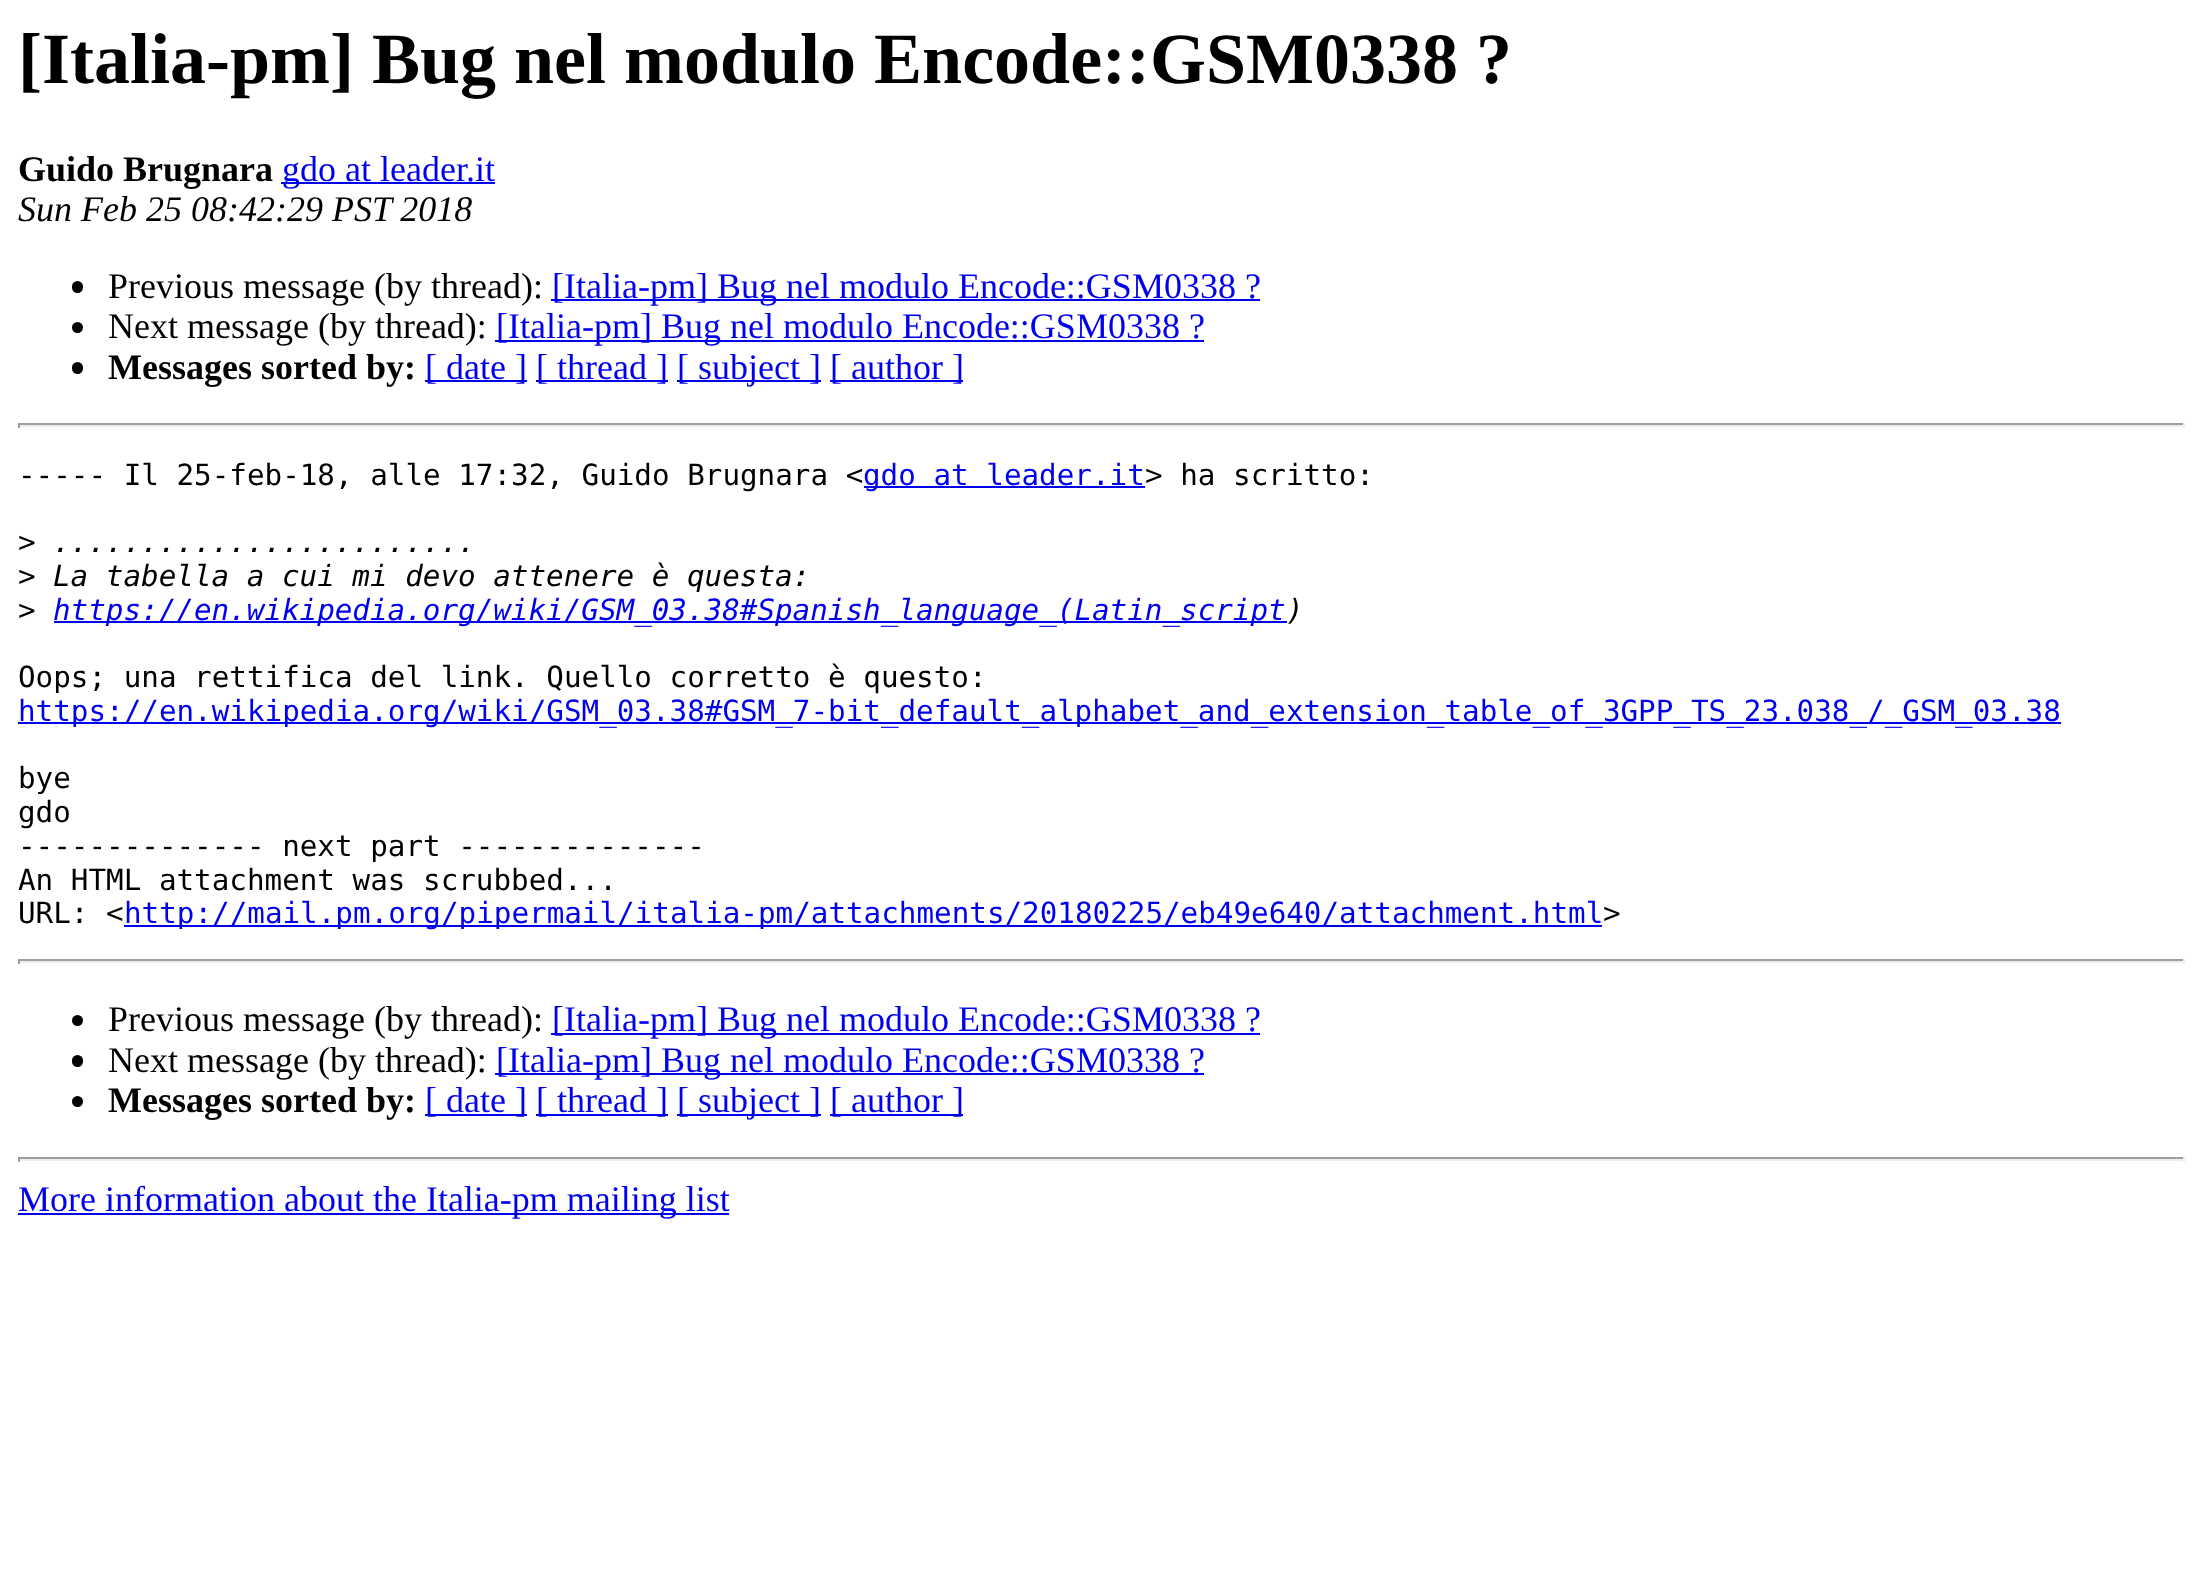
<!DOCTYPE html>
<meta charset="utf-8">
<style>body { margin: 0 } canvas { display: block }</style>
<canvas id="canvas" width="2201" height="1595"></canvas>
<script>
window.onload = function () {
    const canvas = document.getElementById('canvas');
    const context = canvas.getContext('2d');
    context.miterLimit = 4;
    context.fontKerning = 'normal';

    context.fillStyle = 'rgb(255, 255, 255)';
    context.fillRect(0, 0, 2201, 1595);
    context.fillStyle = 'rgb(0, 0, 238)';
    context.fillRect(281, 182, 214, 2);
    context.fillStyle = 'rgb(0, 0, 0)';
    context.beginPath();
    context.roundRect(72, 281, 11, 12, 5.5);
    context.fill();
    context.fillStyle = 'rgb(0, 0, 238)';
    context.fillRect(551, 299, 709, 2);
    context.fillStyle = 'rgb(0, 0, 0)';
    context.beginPath();
    context.arc(77.5, 327.5, 5.5, 0, 2 * Math.PI);
    context.fill();
    context.fillStyle = 'rgb(0, 0, 238)';
    context.fillRect(495, 340, 709, 2);
    context.fillStyle = 'rgb(0, 0, 0)';
    context.beginPath();
    context.roundRect(72, 362, 11, 12, 5.5);
    context.fill();
    context.fillStyle = 'rgb(0, 0, 238)';
    context.fillRect(425, 380, 102, 2);
    context.fillRect(536, 380, 132, 2);
    context.fillRect(677, 380, 144, 2);
    context.fillRect(830, 380, 133, 2);
    context.fillStyle = 'rgb(159, 159, 159)';
    context.fillRect(18, 423, 2167, 2);
    context.fillStyle = 'rgb(238, 238, 238)';
    context.fillRect(2183, 423, 2, 5);
    context.fillRect(18, 425, 2167, 2);
    context.fillStyle = 'rgb(159, 159, 159)';
    context.fillRect(18, 423, 2, 5);
    context.fillStyle = 'rgb(0, 0, 238)';
    context.fillRect(864, 486, 281, 2);
    context.fillRect(54, 621, 1233, 2);
    context.fillRect(18, 722, 2043, 2);
    context.fillRect(124, 925, 1478, 2);
    context.fillStyle = 'rgb(159, 159, 159)';
    context.fillRect(18, 959, 2167, 2);
    context.fillStyle = 'rgb(238, 238, 238)';
    context.fillRect(2183, 959, 2, 5);
    context.fillRect(18, 961, 2167, 2);
    context.fillStyle = 'rgb(159, 159, 159)';
    context.fillRect(18, 959, 2, 5);
    context.fillStyle = 'rgb(0, 0, 0)';
    context.beginPath();
    context.arc(77.5, 1020.5, 5.5, 0, 2 * Math.PI);
    context.fill();
    context.fillStyle = 'rgb(0, 0, 238)';
    context.fillRect(551, 1033, 709, 2);
    context.fillStyle = 'rgb(0, 0, 0)';
    context.beginPath();
    context.roundRect(72, 1055, 11, 12, 5.5);
    context.fill();
    context.fillStyle = 'rgb(0, 0, 238)';
    context.fillRect(495, 1073, 709, 2);
    context.fillStyle = 'rgb(0, 0, 0)';
    context.beginPath();
    context.arc(77.5, 1101.5, 5.5, 0, 2 * Math.PI);
    context.fill();
    context.fillStyle = 'rgb(0, 0, 238)';
    context.fillRect(425, 1114, 102, 2);
    context.fillRect(536, 1114, 132, 2);
    context.fillRect(677, 1114, 144, 2);
    context.fillRect(830, 1114, 133, 2);
    context.fillStyle = 'rgb(159, 159, 159)';
    context.fillRect(18, 1157, 2167, 2);
    context.fillStyle = 'rgb(238, 238, 238)';
    context.fillRect(2183, 1157, 2, 5);
    context.fillRect(18, 1159, 2167, 2);
    context.fillStyle = 'rgb(159, 159, 159)';
    context.fillRect(18, 1157, 2, 5);
    context.fillStyle = 'rgb(0, 0, 238)';
    context.fillRect(18, 1213, 711, 2);
    context.font = 'bold 72px Liberation Serif';
    context.fillStyle = 'rgb(0, 0, 0)';
    context.fillText('[Italia-pm] Bug nel modulo Encode::GSM0338 ?', 18, 83);
    context.font = 'bold 36px Liberation Serif';
    context.fillText('Guido Brugnara', 18, 181);
    context.font = '36px Liberation Serif';
    context.fillStyle = 'rgb(0, 0, 238)';
    context.fillText('gdo at leader.it', 282, 181);
    context.font = 'italic 36px Liberation Serif';
    context.fillStyle = 'rgb(0, 0, 0)';
    context.fillText('Sun Feb 25 08:42:29 PST 2018', 18, 221);
    context.font = '36px Liberation Serif';
    context.fillText('Previous message (by thread):', 108, 298);
    context.fillStyle = 'rgb(0, 0, 238)';
    context.fillText('[Italia-pm] Bug nel modulo Encode::GSM0338 ?', 552, 298);
    context.fillStyle = 'rgb(0, 0, 0)';
    context.fillText('Next message (by thread):', 108, 338);
    context.fillStyle = 'rgb(0, 0, 238)';
    context.fillText('[Italia-pm] Bug nel modulo Encode::GSM0338 ?', 496, 338);
    context.font = 'bold 36px Liberation Serif';
    context.fillStyle = 'rgb(0, 0, 0)';
    context.fillText('Messages sorted by:', 108, 379);
    context.font = '36px Liberation Serif';
    context.fillStyle = 'rgb(0, 0, 238)';
    context.fillText('[ date ]', 425, 379);
    context.fillText('[ thread ]', 536, 379);
    context.fillText('[ subject ]', 677, 379);
    context.fillText('[ author ]', 830, 379);
    context.font = '29.25px DejaVu Sans Mono';
    context.fillStyle = 'rgb(0, 0, 0)';
    context.fillText('----- Il 25-feb-18, alle 17:32, Guido Brugnara <', 18, 485);
    context.fillStyle = 'rgb(0, 0, 238)';
    context.fillText('gdo at leader.it', 863, 485);
    context.fillStyle = 'rgb(0, 0, 0)';
    context.fillText('> ha scritto:', 1145, 485);
    context.fillText('>', 18, 552);
    context.font = 'italic 29.25px DejaVu Sans Mono';
    context.fillText('........................', 53, 552);
    context.font = '29.25px DejaVu Sans Mono';
    context.fillText('>', 18, 586);
    context.font = 'italic 29.25px DejaVu Sans Mono';
    context.fillText('La tabella a cui mi devo attenere è questa:', 53, 586);
    context.font = '29.25px DejaVu Sans Mono';
    context.fillText('>', 18, 620);
    context.font = 'italic 29.25px DejaVu Sans Mono';
    context.fillStyle = 'rgb(0, 0, 238)';
    context.fillText('https://en.wikipedia.org/wiki/GSM_03.38#Spanish_language_(Latin_script', 53, 620);
    context.fillStyle = 'rgb(0, 0, 0)';
    context.fillText(')', 1286, 620);
    context.font = '29.25px DejaVu Sans Mono';
    context.fillText('Oops; una rettifica del link. Quello corretto è questo:', 18, 687);
    context.fillStyle = 'rgb(0, 0, 238)';
    context.fillText('https://en.wikipedia.org/wiki/GSM_03.38#GSM_7-bit_default_alphabet_and_extension_table_of_3GPP_TS_23.038_/_GSM_03.38', 18, 721);
    context.fillStyle = 'rgb(0, 0, 0)';
    context.fillText('bye', 18, 788);
    context.fillText('gdo', 18, 822);
    context.fillText('-------------- next part --------------', 18, 856);
    context.fillText('An HTML attachment was scrubbed...', 18, 890);
    context.fillText('URL: <', 18, 923);
    context.fillStyle = 'rgb(0, 0, 238)';
    context.fillText('http://mail.pm.org/pipermail/italia-pm/attachments/20180225/eb49e640/attachment.html', 124, 923);
    context.fillStyle = 'rgb(0, 0, 0)';
    context.fillText('>', 1603, 923);
    context.font = '36px Liberation Serif';
    context.fillText('Previous message (by thread):', 108, 1031);
    context.fillStyle = 'rgb(0, 0, 238)';
    context.fillText('[Italia-pm] Bug nel modulo Encode::GSM0338 ?', 552, 1031);
    context.fillStyle = 'rgb(0, 0, 0)';
    context.fillText('Next message (by thread):', 108, 1072);
    context.fillStyle = 'rgb(0, 0, 238)';
    context.fillText('[Italia-pm] Bug nel modulo Encode::GSM0338 ?', 496, 1072);
    context.font = 'bold 36px Liberation Serif';
    context.fillStyle = 'rgb(0, 0, 0)';
    context.fillText('Messages sorted by:', 108, 1112);
    context.font = '36px Liberation Serif';
    context.fillStyle = 'rgb(0, 0, 238)';
    context.fillText('[ date ]', 425, 1112);
    context.fillText('[ thread ]', 536, 1112);
    context.fillText('[ subject ]', 677, 1112);
    context.fillText('[ author ]', 830, 1112);
    context.fillText('More information about the Italia-pm mailing list', 18, 1211);
};
</script>
